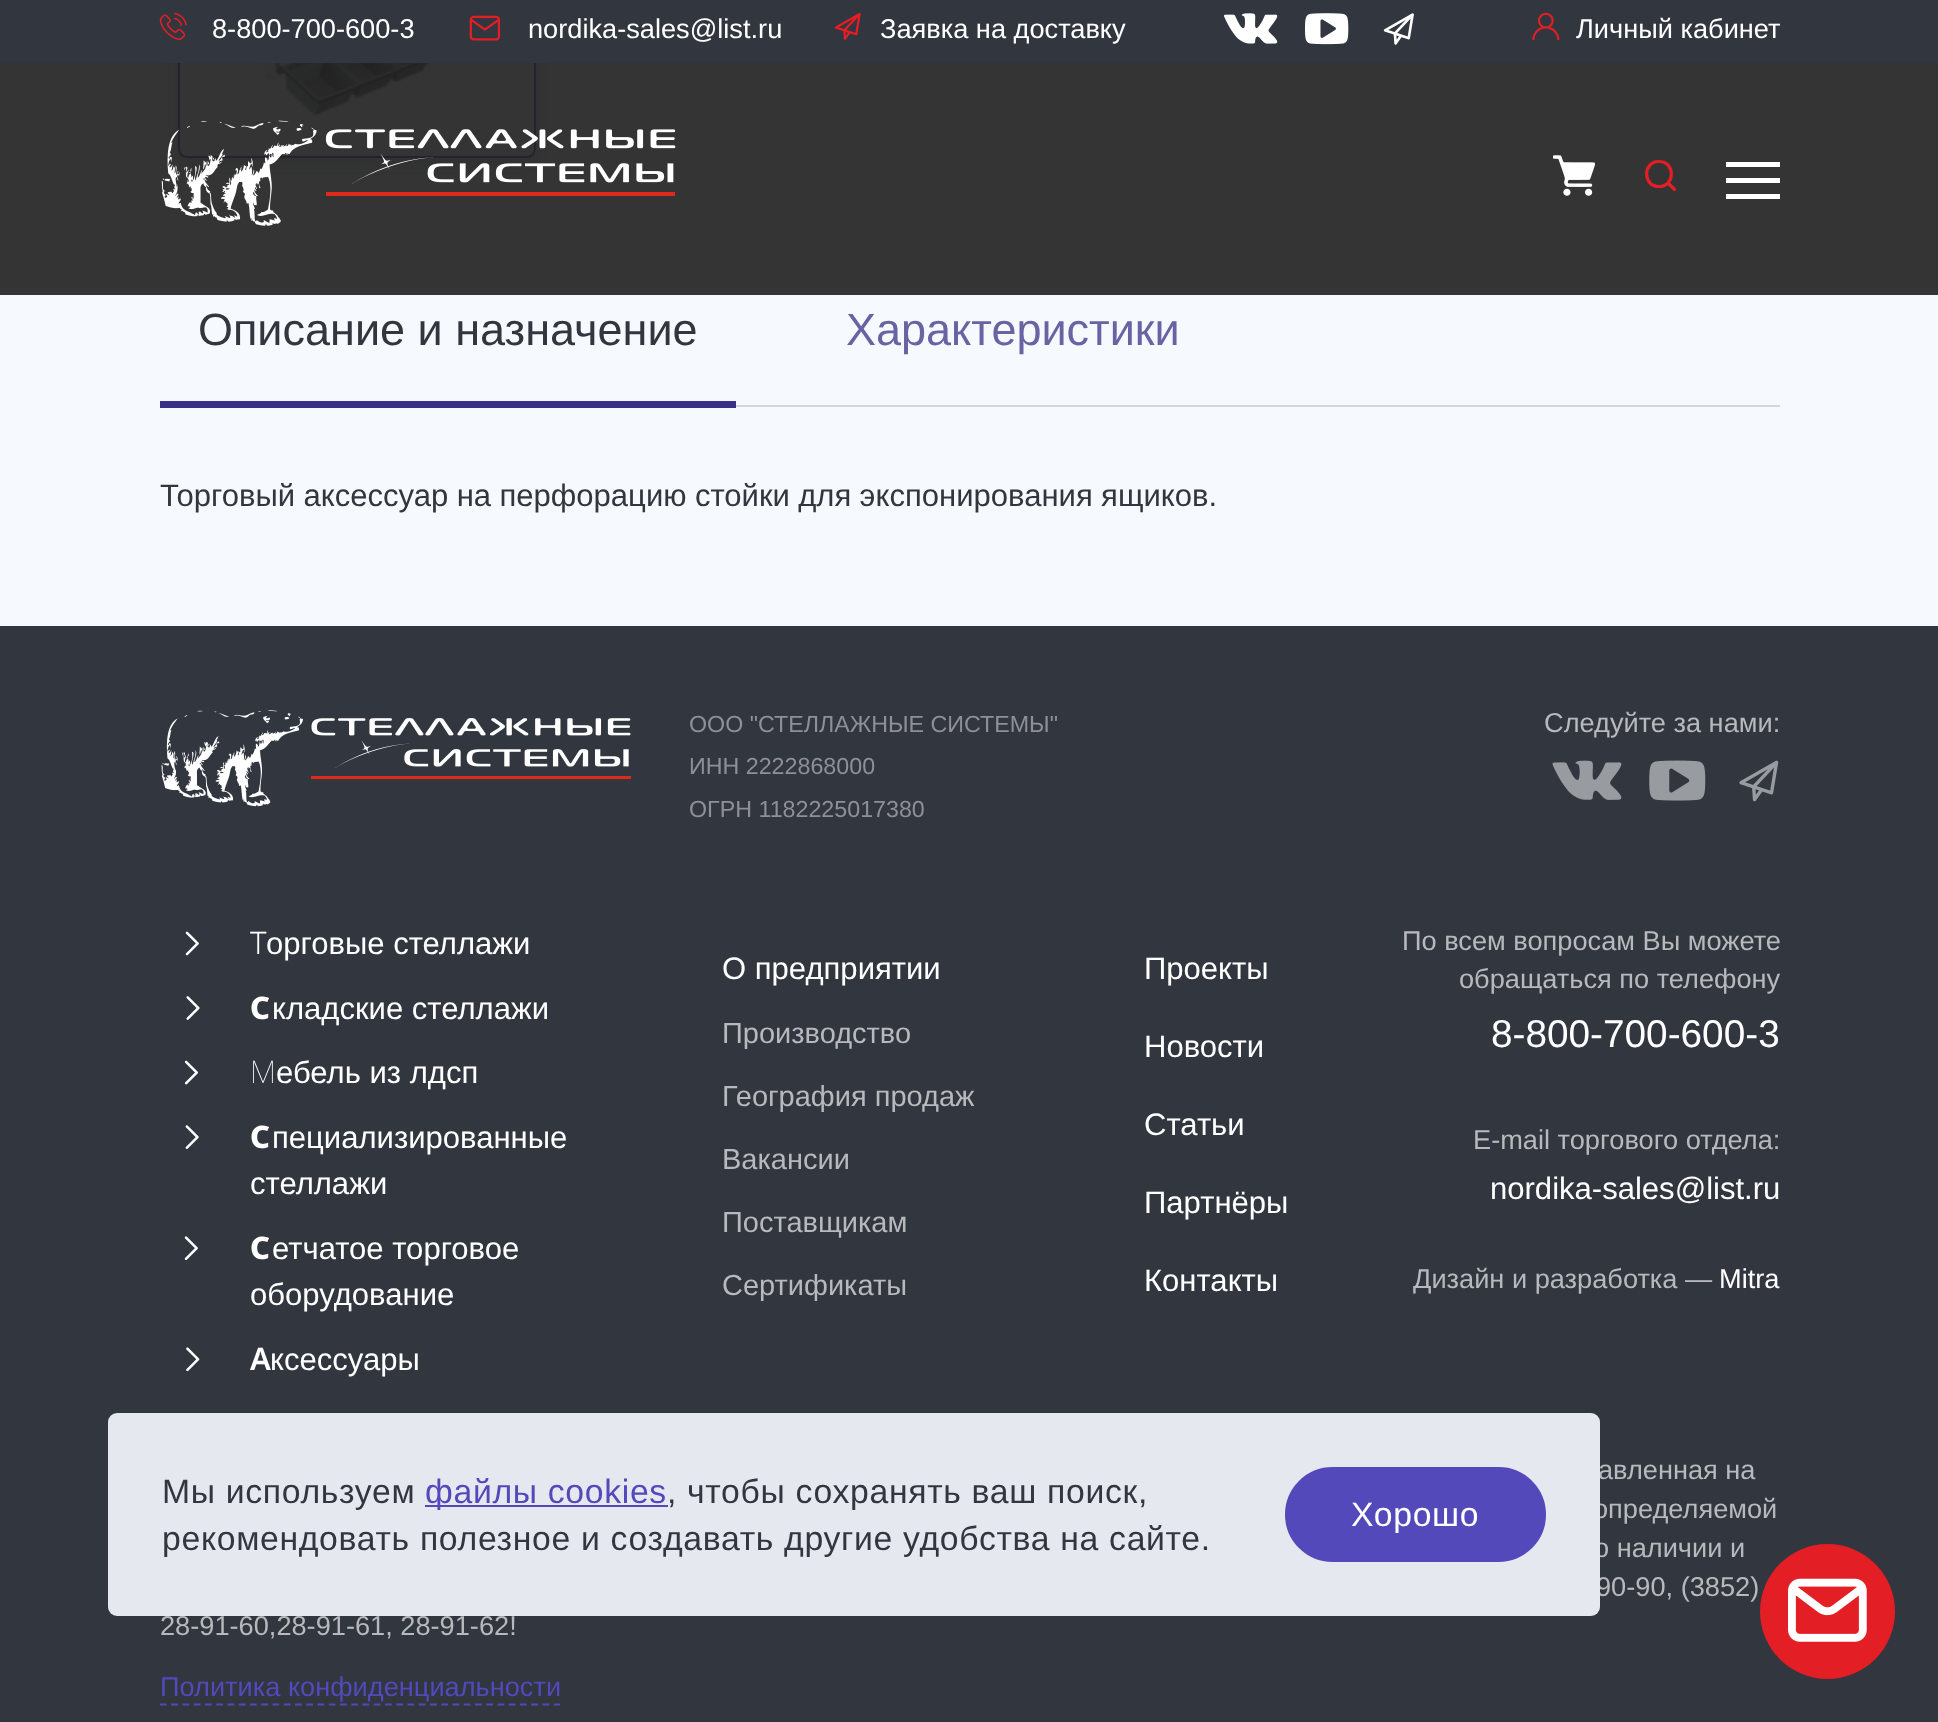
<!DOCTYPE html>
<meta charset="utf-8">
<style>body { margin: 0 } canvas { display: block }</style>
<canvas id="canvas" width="1938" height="1722"></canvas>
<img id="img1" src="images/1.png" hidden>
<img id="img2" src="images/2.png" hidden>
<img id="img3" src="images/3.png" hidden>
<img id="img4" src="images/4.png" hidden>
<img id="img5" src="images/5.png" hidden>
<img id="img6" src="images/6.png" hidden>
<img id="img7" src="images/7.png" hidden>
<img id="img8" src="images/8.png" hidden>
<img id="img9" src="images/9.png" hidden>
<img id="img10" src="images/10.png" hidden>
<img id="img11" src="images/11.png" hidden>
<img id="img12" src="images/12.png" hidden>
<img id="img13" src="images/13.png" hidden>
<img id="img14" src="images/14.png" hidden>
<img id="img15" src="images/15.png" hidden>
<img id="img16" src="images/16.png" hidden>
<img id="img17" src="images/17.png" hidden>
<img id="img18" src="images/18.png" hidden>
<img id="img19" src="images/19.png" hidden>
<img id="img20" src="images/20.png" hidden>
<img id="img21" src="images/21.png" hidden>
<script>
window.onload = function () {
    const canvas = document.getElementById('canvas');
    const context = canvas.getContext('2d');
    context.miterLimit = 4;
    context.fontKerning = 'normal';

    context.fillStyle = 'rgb(246, 249, 253)';
    context.fillRect(0, 0, 1938, 1722);
    context.fillStyle = 'rgb(51, 52, 51)';
    context.fillRect(0, 63, 1938, 232);
    context.fillStyle = 'rgba(34, 34, 39, 0.15)';
    context.filter = 'blur(5.5px)';
    context.beginPath();
    context.roundRect(178, -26, 358, 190, 9);
    context.fill();
    context.filter = 'none';
    context.fillStyle = 'rgb(52, 52, 52)';
    context.beginPath();
    context.roundRect(179, -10, 356, 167, 8);
    context.fill();
    context.strokeStyle = 'rgb(35, 34, 45)';
    context.lineWidth = 2;
    context.stroke();
    context.fillStyle = 'rgb(49, 54, 63)';
    context.fillRect(0, 0, 1938, 63);
    context.drawImage(document.getElementById('img1'), 159, 12, 28, 28);
    context.drawImage(document.getElementById('img2'), 469, 15, 32, 26);
    context.drawImage(document.getElementById('img3'), 834, 12, 27, 28);
    context.drawImage(document.getElementById('img4'), 1224, 13, 54, 31);
    context.drawImage(document.getElementById('img5'), 1305, 13, 44, 32);
    context.drawImage(document.getElementById('img6'), 1383, 13, 31, 32);
    context.drawImage(document.getElementById('img7'), 1532, 12, 28, 28);
    context.drawImage(document.getElementById('img8'), 161, 120, 515, 106);
    context.drawImage(document.getElementById('img9'), 1553, 155, 42, 41);
    context.beginPath();
    context.moveTo(1659, 186.5);
    context.bezierCurveTo(1675.5, 186.5, 1675.5, 161.5, 1659, 161.5);
    context.bezierCurveTo(1642.5, 161.5, 1642.5, 186.5, 1659, 186.5);
    context.closePath();
    context.moveTo(1674.5, 189.5);
    context.lineTo(1668, 183);
    context.strokeStyle = 'rgb(227, 30, 36)';
    context.lineWidth = 3.2;
    context.lineCap = 'round';
    context.lineJoin = 'round';
    context.stroke();
    context.fillStyle = 'rgb(255, 255, 255)';
    context.fillRect(1726, 162, 54, 5);
    context.fillRect(1726, 178, 54, 5);
    context.fillRect(1726, 194, 54, 5);
    context.drawImage(document.getElementById('img10'), 262, 63, 168, 53);
    context.fillStyle = 'rgb(209, 214, 227)';
    context.fillRect(736, 405, 1044, 2);
    context.fillStyle = 'rgb(57, 49, 133)';
    context.fillRect(160, 401, 576, 7);
    context.fillStyle = 'rgb(49, 54, 63)';
    context.fillRect(0, 626, 1938, 1096);
    context.drawImage(document.getElementById('img11'), 161, 710, 470, 97);
    context.drawImage(document.getElementById('img12'), 1552, 760, 70, 40);
    context.drawImage(document.getElementById('img13'), 1649, 760, 57, 41);
    context.drawImage(document.getElementById('img14'), 1739, 760, 40, 42);
    context.drawImage(document.getElementById('img15'), 185, 931, 14, 25);
    context.drawImage(document.getElementById('img16'), 186, 996, 14, 24);
    context.drawImage(document.getElementById('img17'), 184, 1060, 14, 25);
    context.drawImage(document.getElementById('img18'), 185, 1125, 14, 24);
    context.drawImage(document.getElementById('img19'), 184, 1236, 14, 24);
    context.drawImage(document.getElementById('img20'), 186, 1347, 14, 25);
    context.beginPath();
    context.moveTo(160, 1704.5);
    context.lineTo(560, 1704.5);
    context.strokeStyle = 'rgb(84, 73, 186)';
    context.lineWidth = 2.2;
    context.lineCap = 'butt';
    context.lineJoin = 'miter';
    context.setLineDash([6.75, 4.5]);
    context.stroke();
    context.fillStyle = 'rgb(227, 30, 36)';
    context.beginPath();
    context.arc(1827.5, 1611.5, 67.5, 0, 2 * Math.PI);
    context.fill();
    context.drawImage(document.getElementById('img21'), 1788, 1578, 79, 64);
    context.font = '27.2px Liberation Sans';
    context.fillStyle = 'rgb(255, 255, 255)';
    context.fillText('8-800-700-600-3', 212, 38);
    context.fillText('nordika-sales@list.ru', 528, 38);
    context.fillText('Заявка на доставку', 880, 38);
    context.fillText('Личный кабинет', 1576, 38);
    context.font = '45px Liberation Sans';
    context.fillStyle = 'rgb(49, 54, 63)';
    context.fillText('Описание и назначение', 198, 345);
    context.fillStyle = 'rgb(104, 99, 163)';
    context.fillText('Характеристики', 846, 345);
    context.wordSpacing = '-0.25px';
    context.font = '31.05px Liberation Sans';
    context.fillStyle = 'rgb(49, 54, 63)';
    context.fillText('Торговый аксессуар на перфорацию стойки для экспонирования ящиков.', 160, 506);
    context.wordSpacing = '0px';
    context.font = '23.25px Liberation Sans';
    context.fillStyle = 'rgb(142, 144, 149)';
    context.fillText('ООО "СТЕЛЛАЖНЫЕ СИСТЕМЫ"', 689, 732);
    context.fillText('ИНН 2222868000', 689, 774);
    context.fillText('ОГРН 1182225017380', 689, 817);
    context.font = '27.2px Liberation Sans';
    context.fillStyle = 'rgb(183, 185, 188)';
    context.fillText('Следуйте за нами:', 1544, 732);
    context.font = '300 31.05px Noto Sans';
    context.fillStyle = 'rgb(255, 255, 255)';
    context.fillText('Т', 250, 954);
    context.font = '31.05px Liberation Sans';
    context.fillText('орговые стеллажи', 266, 954);
    context.font = '800 31.05px Noto Sans';
    context.fillText('С', 250, 1019);
    context.font = '31.05px Liberation Sans';
    context.fillText('кладские стеллажи', 272, 1019);
    context.font = '100 31.05px Noto Sans';
    context.fillText('М', 250, 1083);
    context.font = '31.05px Liberation Sans';
    context.fillText('ебель из лдсп', 276, 1083);
    context.font = '800 31.05px Noto Sans';
    context.fillText('С', 250, 1148);
    context.font = '31.05px Liberation Sans';
    context.fillText('пециализированные', 272, 1148);
    context.fillText('стеллажи', 250, 1194);
    context.font = '800 31.05px Noto Sans';
    context.fillText('С', 250, 1259);
    context.font = '31.05px Liberation Sans';
    context.fillText('етчатое торговое', 272, 1259);
    context.fillText('оборудование', 250, 1305);
    context.font = '600 31.05px Noto Sans';
    context.fillText('А', 250, 1370);
    context.font = '31.05px Liberation Sans';
    context.fillText('ксессуары', 270, 1370);
    context.fillText('О предприятии', 722, 979);
    context.font = '29px Liberation Sans';
    context.fillStyle = 'rgb(183, 185, 188)';
    context.fillText('Производство', 722, 1043);
    context.fillText('География продаж', 722, 1106);
    context.fillText('Вакансии', 722, 1169);
    context.fillText('Поставщикам', 722, 1232);
    context.fillText('Сертификаты', 722, 1295);
    context.font = '31.05px Liberation Sans';
    context.fillStyle = 'rgb(255, 255, 255)';
    context.fillText('Проекты', 1144, 979);
    context.fillText('Новости', 1144, 1057);
    context.fillText('Статьи', 1144, 1135);
    context.fillText('Партнёры', 1144, 1213);
    context.fillText('Контакты', 1144, 1291);
    context.font = '27.2px Liberation Sans';
    context.fillStyle = 'rgb(183, 185, 188)';
    context.fillText('По всем вопросам Вы можете', 1402, 950);
    context.fillText('обращаться по телефону', 1459, 988);
    context.font = '38.75px Liberation Sans';
    context.fillStyle = 'rgb(255, 255, 255)';
    context.fillText('8-800-700-600-3', 1491, 1047);
    context.font = '27.2px Liberation Sans';
    context.fillStyle = 'rgb(183, 185, 188)';
    context.fillText('E-mail торгового отдела:', 1473, 1149);
    context.font = '31.05px Liberation Sans';
    context.fillStyle = 'rgb(255, 255, 255)';
    context.fillText('nordika-sales@list.ru', 1490, 1199);
    context.font = '27.2px Liberation Sans';
    context.fillStyle = 'rgb(183, 185, 188)';
    context.fillText('Дизайн и разработка —', 1413, 1288);
    context.fillStyle = 'rgb(255, 255, 255)';
    context.fillText('Mitra', 1719, 1288);
    context.fillStyle = 'rgb(183, 185, 188)';
    context.fillText('авленная на', 1598, 1479);
    context.fillText('определяемой', 1593, 1518);
    context.fillText('о наличии и', 1594, 1557);
    context.fillText('90-90, (3852)', 1596, 1596);
    context.fillText('28-91-60,28-91-61, 28-91-62!', 160, 1635);
    context.fillStyle = 'rgb(84, 73, 186)';
    context.fillText('Политика конфиденциальности', 160, 1696);
    context.fillStyle = 'rgb(230, 232, 239)';
    context.beginPath();
    context.roundRect(108, 1413, 1492, 203, 9);
    context.fill();
    context.letterSpacing = '0.67px';
    context.font = '33.75px Liberation Sans';
    context.fillStyle = 'rgb(49, 54, 63)';
    context.fillText('Мы используем', 162, 1503);
    context.fillStyle = 'rgb(84, 73, 186)';
    context.fillRect(425, 1505, 243, 2);
    context.fillText('файлы cookies', 425, 1503);
    context.fillStyle = 'rgb(49, 54, 63)';
    context.fillText(', чтобы сохранять ваш поиск,', 667, 1503);
    context.fillText('рекомендовать полезное и создавать другие удобства на сайте.', 162, 1550);
    context.fillStyle = 'rgb(84, 73, 186)';
    context.beginPath();
    context.roundRect(1286, 1468, 259, 93, 46.5);
    context.fill();
    context.lineWidth = 2;
    context.setLineDash([]);
    context.stroke();
    context.fillStyle = 'rgb(255, 255, 255)';
    context.fillText('Хорошо', 1351, 1526);
};
</script>
